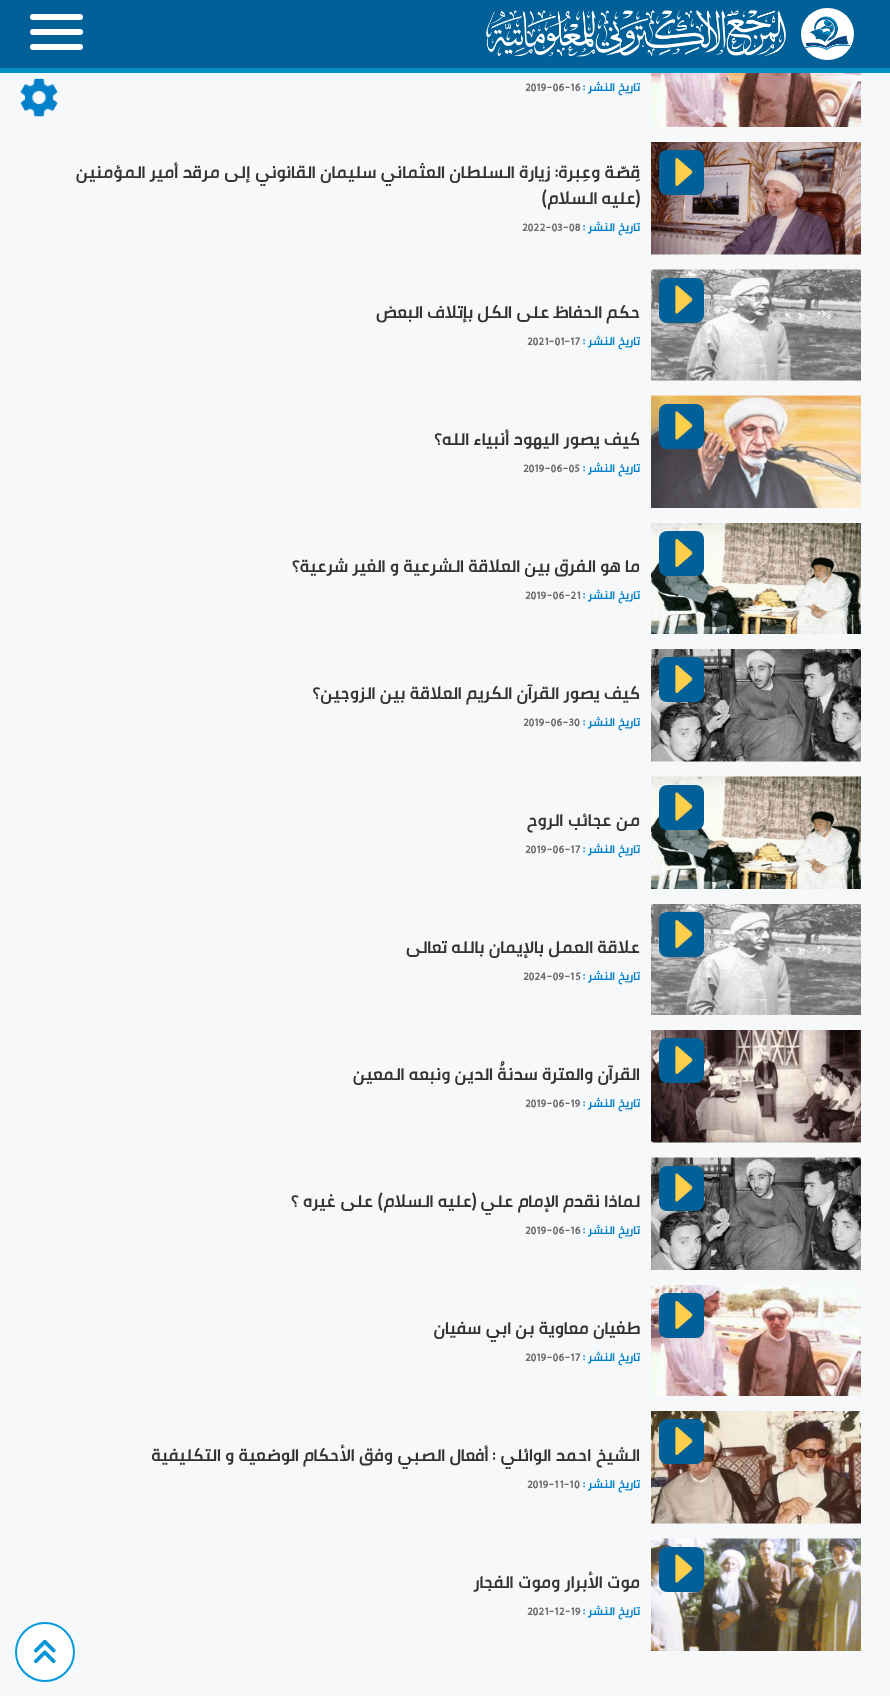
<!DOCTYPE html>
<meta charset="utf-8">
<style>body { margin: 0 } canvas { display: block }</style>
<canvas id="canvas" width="890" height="1696"></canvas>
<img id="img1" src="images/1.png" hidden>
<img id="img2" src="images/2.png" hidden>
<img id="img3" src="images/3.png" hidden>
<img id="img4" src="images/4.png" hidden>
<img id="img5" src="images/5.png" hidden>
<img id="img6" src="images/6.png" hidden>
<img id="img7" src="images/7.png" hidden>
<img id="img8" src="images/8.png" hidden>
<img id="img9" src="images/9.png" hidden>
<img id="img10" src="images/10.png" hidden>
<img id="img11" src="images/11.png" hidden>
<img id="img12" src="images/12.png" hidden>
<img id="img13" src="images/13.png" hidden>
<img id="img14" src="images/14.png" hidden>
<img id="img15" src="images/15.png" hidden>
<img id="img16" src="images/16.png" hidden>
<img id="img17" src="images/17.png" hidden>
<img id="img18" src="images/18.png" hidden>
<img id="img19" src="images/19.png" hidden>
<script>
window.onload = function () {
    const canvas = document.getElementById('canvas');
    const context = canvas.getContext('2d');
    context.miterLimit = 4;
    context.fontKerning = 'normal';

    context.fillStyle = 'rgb(246, 248, 249)';
    context.fillRect(0, 0, 890, 1696);
    context.fillStyle = 'rgb(0, 96, 151)';
    context.fillRect(0, 0, 890, 68);
    context.fillStyle = 'rgb(0, 142, 197)';
    context.fillRect(0, 68, 890, 5);
    context.fillStyle = 'rgb(255, 255, 255)';
    context.beginPath();
    context.roundRect(801, 8, 53, 52, 26);
    context.fill();
    context.drawImage(document.getElementById('img1'), 805, 16, 45, 34);
    context.drawImage(document.getElementById('img2'), 486, 10, 300, 47);
    context.beginPath();
    context.roundRect(30, 14, 53, 6, 3);
    context.fill();
    context.beginPath();
    context.roundRect(30, 29, 53, 6, 3);
    context.fill();
    context.beginPath();
    context.roundRect(30, 44, 53, 6, 3);
    context.fill();
    context.drawImage(document.getElementById('img3'), 651, 73, 210, 54);
    context.drawImage(document.getElementById('img4'), 651, 142, 210, 113);
    context.fillStyle = 'rgb(0, 96, 151)';
    context.beginPath();
    context.roundRect(659, 150, 45, 45, 8);
    context.fill();
    context.drawImage(document.getElementById('img5'), 675, 158, 18, 28);
    context.drawImage(document.getElementById('img6'), 651, 269, 210, 112);
    context.beginPath();
    context.roundRect(659, 278, 45, 45, 8);
    context.fill();
    context.drawImage(document.getElementById('img7'), 675, 285, 18, 29);
    context.drawImage(document.getElementById('img8'), 651, 395, 210, 113);
    context.beginPath();
    context.roundRect(659, 404, 45, 45, 8);
    context.fill();
    context.drawImage(document.getElementById('img7'), 675, 411, 18, 29);
    context.drawImage(document.getElementById('img9'), 651, 523, 210, 111);
    context.beginPath();
    context.roundRect(659, 531, 45, 45, 8);
    context.fill();
    context.drawImage(document.getElementById('img5'), 675, 539, 18, 28);
    context.drawImage(document.getElementById('img10'), 651, 649, 210, 113);
    context.beginPath();
    context.roundRect(659, 657, 45, 45, 8);
    context.fill();
    context.drawImage(document.getElementById('img5'), 675, 665, 18, 28);
    context.drawImage(document.getElementById('img11'), 651, 776, 210, 113);
    context.beginPath();
    context.roundRect(659, 785, 45, 45, 8);
    context.fill();
    context.drawImage(document.getElementById('img7'), 675, 792, 18, 29);
    context.drawImage(document.getElementById('img12'), 651, 904, 210, 111);
    context.beginPath();
    context.roundRect(659, 912, 45, 45, 8);
    context.fill();
    context.drawImage(document.getElementById('img5'), 675, 920, 18, 28);
    context.drawImage(document.getElementById('img13'), 651, 1030, 210, 113);
    context.beginPath();
    context.roundRect(659, 1038, 45, 45, 8);
    context.fill();
    context.drawImage(document.getElementById('img5'), 675, 1046, 18, 28);
    context.drawImage(document.getElementById('img14'), 651, 1157, 210, 113);
    context.beginPath();
    context.roundRect(659, 1166, 45, 45, 8);
    context.fill();
    context.drawImage(document.getElementById('img7'), 675, 1173, 18, 29);
    context.drawImage(document.getElementById('img15'), 651, 1285, 210, 111);
    context.beginPath();
    context.roundRect(659, 1293, 45, 45, 8);
    context.fill();
    context.drawImage(document.getElementById('img5'), 675, 1301, 18, 28);
    context.drawImage(document.getElementById('img16'), 651, 1411, 210, 113);
    context.beginPath();
    context.roundRect(659, 1419, 45, 45, 8);
    context.fill();
    context.drawImage(document.getElementById('img5'), 675, 1427, 18, 28);
    context.drawImage(document.getElementById('img17'), 651, 1538, 210, 113);
    context.beginPath();
    context.roundRect(659, 1547, 45, 45, 8);
    context.fill();
    context.drawImage(document.getElementById('img7'), 675, 1554, 18, 29);
    context.drawImage(document.getElementById('img18'), 20, 78, 38, 39);
    context.fillStyle = 'rgb(255, 255, 255)';
    context.beginPath();
    context.arc(45, 1652, 29, 0, 2 * Math.PI);
    context.fill();
    context.strokeStyle = 'rgb(0, 153, 221)';
    context.lineWidth = 2;
    context.stroke();
    context.drawImage(document.getElementById('img19'), 34, 1639, 22, 25);
    context.direction = 'rtl';
    context.font = 'bold 12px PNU';
    context.fillStyle = 'rgb(2, 128, 201)';
    context.fillText('تاريخ النشر :', 640, 91);
    context.direction = 'ltr';
    context.fillStyle = 'rgb(108, 108, 108)';
    context.fillText('2019-06-16', 525, 91);
    context.direction = 'rtl';
    context.font = 'bold 18px PNU';
    context.fillStyle = 'rgb(51, 51, 51)';
    context.fillText('قِصّة وعِبرة: زيارة السلطان العثماني سليمان القانوني إلى مرقد أمير المؤمنين', 640, 178);
    context.fillText('(عليه السلام)', 640, 204);
    context.font = 'bold 12px PNU';
    context.fillStyle = 'rgb(2, 128, 201)';
    context.fillText('تاريخ النشر :', 640, 231);
    context.direction = 'ltr';
    context.fillStyle = 'rgb(108, 108, 108)';
    context.fillText('2022-03-08', 522, 231);
    context.direction = 'rtl';
    context.font = 'bold 18px PNU';
    context.fillStyle = 'rgb(51, 51, 51)';
    context.fillText('حكم الحفاظ على الكل بإتلاف البعض', 640, 318);
    context.font = 'bold 12px PNU';
    context.fillStyle = 'rgb(2, 128, 201)';
    context.fillText('تاريخ النشر :', 640, 345);
    context.direction = 'ltr';
    context.fillStyle = 'rgb(108, 108, 108)';
    context.fillText('2021-01-17', 527, 345);
    context.direction = 'rtl';
    context.font = 'bold 18px PNU';
    context.fillStyle = 'rgb(51, 51, 51)';
    context.fillText('كيف يصور اليهود أنبياء الله؟', 640, 445);
    context.font = 'bold 12px PNU';
    context.fillStyle = 'rgb(2, 128, 201)';
    context.fillText('تاريخ النشر :', 640, 472);
    context.direction = 'ltr';
    context.fillStyle = 'rgb(108, 108, 108)';
    context.fillText('2019-06-05', 523, 472);
    context.direction = 'rtl';
    context.font = 'bold 18px PNU';
    context.fillStyle = 'rgb(51, 51, 51)';
    context.fillText('ما هو الفرق بين العلاقة الشرعية و الغير شرعية؟', 640, 572);
    context.font = 'bold 12px PNU';
    context.fillStyle = 'rgb(2, 128, 201)';
    context.fillText('تاريخ النشر :', 640, 599);
    context.direction = 'ltr';
    context.fillStyle = 'rgb(108, 108, 108)';
    context.fillText('2019-06-21', 525, 599);
    context.direction = 'rtl';
    context.font = 'bold 18px PNU';
    context.fillStyle = 'rgb(51, 51, 51)';
    context.fillText('كيف يصور القرآن الكريم العلاقة بين الزوجين؟', 640, 699);
    context.font = 'bold 12px PNU';
    context.fillStyle = 'rgb(2, 128, 201)';
    context.fillText('تاريخ النشر :', 640, 726);
    context.direction = 'ltr';
    context.fillStyle = 'rgb(108, 108, 108)';
    context.fillText('2019-06-30', 523, 726);
    context.direction = 'rtl';
    context.font = 'bold 18px PNU';
    context.fillStyle = 'rgb(51, 51, 51)';
    context.fillText('من عجائب الروح', 640, 826);
    context.font = 'bold 12px PNU';
    context.fillStyle = 'rgb(2, 128, 201)';
    context.fillText('تاريخ النشر :', 640, 853);
    context.direction = 'ltr';
    context.fillStyle = 'rgb(108, 108, 108)';
    context.fillText('2019-06-17', 525, 853);
    context.direction = 'rtl';
    context.font = 'bold 18px PNU';
    context.fillStyle = 'rgb(51, 51, 51)';
    context.fillText('علاقة العمل بالإيمان بالله تعالى', 640, 953);
    context.font = 'bold 12px PNU';
    context.fillStyle = 'rgb(2, 128, 201)';
    context.fillText('تاريخ النشر :', 640, 980);
    context.direction = 'ltr';
    context.fillStyle = 'rgb(108, 108, 108)';
    context.fillText('2024-09-15', 523, 980);
    context.direction = 'rtl';
    context.font = 'bold 18px PNU';
    context.fillStyle = 'rgb(51, 51, 51)';
    context.fillText('القرآن والعترة سدنةُ الدين ونبعه المعين', 640, 1080);
    context.font = 'bold 12px PNU';
    context.fillStyle = 'rgb(2, 128, 201)';
    context.fillText('تاريخ النشر :', 640, 1107);
    context.direction = 'ltr';
    context.fillStyle = 'rgb(108, 108, 108)';
    context.fillText('2019-06-19', 525, 1107);
    context.direction = 'rtl';
    context.font = 'bold 18px PNU';
    context.fillStyle = 'rgb(51, 51, 51)';
    context.fillText('لماذا نقدم الإمام علي (عليه السلام) على غيره ؟', 640, 1207);
    context.font = 'bold 12px PNU';
    context.fillStyle = 'rgb(2, 128, 201)';
    context.fillText('تاريخ النشر :', 640, 1234);
    context.direction = 'ltr';
    context.fillStyle = 'rgb(108, 108, 108)';
    context.fillText('2019-06-16', 525, 1234);
    context.direction = 'rtl';
    context.font = 'bold 18px PNU';
    context.fillStyle = 'rgb(51, 51, 51)';
    context.fillText('طغيان معاوية بن ابي سفيان', 640, 1334);
    context.font = 'bold 12px PNU';
    context.fillStyle = 'rgb(2, 128, 201)';
    context.fillText('تاريخ النشر :', 640, 1361);
    context.direction = 'ltr';
    context.fillStyle = 'rgb(108, 108, 108)';
    context.fillText('2019-06-17', 525, 1361);
    context.direction = 'rtl';
    context.font = 'bold 18px PNU';
    context.fillStyle = 'rgb(51, 51, 51)';
    context.fillText('الشيخ احمد الوائلي : أفعال الصبي وفق الأحكام', 640, 1461);
    context.fillText('الوضعية و التكليفية', 299, 1461);
    context.font = 'bold 12px PNU';
    context.fillStyle = 'rgb(2, 128, 201)';
    context.fillText('تاريخ النشر :', 640, 1488);
    context.direction = 'ltr';
    context.fillStyle = 'rgb(108, 108, 108)';
    context.fillText('2019-11-10', 527, 1488);
    context.direction = 'rtl';
    context.font = 'bold 18px PNU';
    context.fillStyle = 'rgb(51, 51, 51)';
    context.fillText('موت الأبرار وموت الفجار', 640, 1588);
    context.font = 'bold 12px PNU';
    context.fillStyle = 'rgb(2, 128, 201)';
    context.fillText('تاريخ النشر :', 640, 1615);
    context.direction = 'ltr';
    context.fillStyle = 'rgb(108, 108, 108)';
    context.fillText('2021-12-19', 527, 1615);
};
</script>
